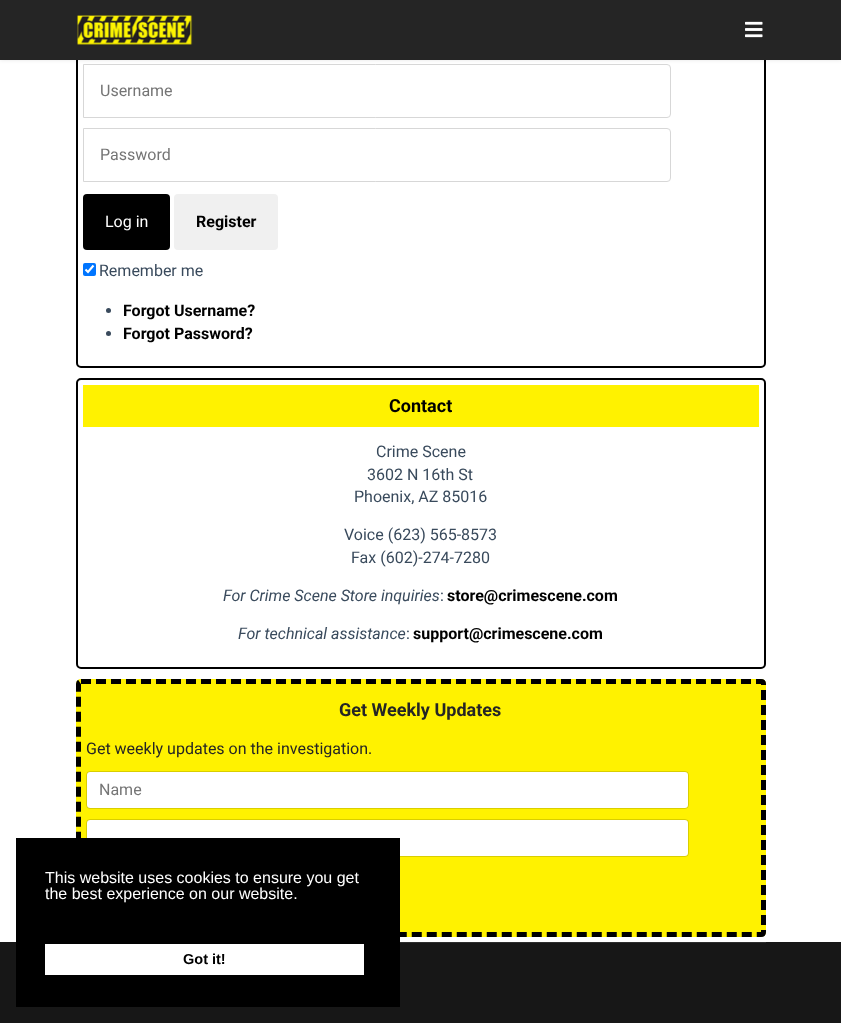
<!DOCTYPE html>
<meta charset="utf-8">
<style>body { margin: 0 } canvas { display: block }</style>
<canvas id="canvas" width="841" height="1023"></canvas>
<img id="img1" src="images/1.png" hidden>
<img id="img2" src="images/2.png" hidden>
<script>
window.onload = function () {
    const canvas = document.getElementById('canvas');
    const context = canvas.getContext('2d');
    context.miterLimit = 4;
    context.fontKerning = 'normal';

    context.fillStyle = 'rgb(255, 255, 255)';
    context.fillRect(0, 0, 841, 1023);
    context.beginPath();
    context.roundRect(77, 8, 688, 359, 4);
    context.strokeStyle = 'rgb(0, 0, 0)';
    context.lineWidth = 2;
    context.stroke();
    context.beginPath();
    context.roundRect(83.5, 64.5, 587, 53, [0, 3.5, 3.5, 0]);
    context.strokeStyle = 'rgb(215, 215, 215)';
    context.lineWidth = 1;
    context.stroke();
    context.fillStyle = 'rgba(0, 0, 0, 0.1)';
    context.filter = 'blur(2px)';
    context.beginPath();
    context.rect(0, 0, 841, 60);
    context.fill();
    context.filter = 'none';
    context.fillStyle = 'rgb(37, 37, 37)';
    context.fillRect(0, 0, 841, 60);
    context.drawImage(document.getElementById('img1'), 77, 15, 116, 30);
    context.drawImage(document.getElementById('img2'), 745, 21, 18, 17);
    context.beginPath();
    context.roundRect(83.5, 128.5, 587, 53, [0, 3.5, 3.5, 0]);
    context.stroke();
    context.fillStyle = 'rgb(0, 0, 0)';
    context.beginPath();
    context.roundRect(83, 194, 87, 56, 4);
    context.fill();
    context.fillStyle = 'rgb(240, 240, 240)';
    context.beginPath();
    context.roundRect(174, 194, 104, 56, 4);
    context.fill();
    context.fillStyle = 'rgb(0, 117, 255)';
    context.beginPath();
    context.roundRect(83, 263, 13, 13, 2);
    context.fill();
    context.beginPath();
    context.moveTo(85.5, 269.5);
    context.lineTo(88, 272);
    context.lineTo(93.5, 265.5);
    context.strokeStyle = 'rgb(255, 255, 255)';
    context.lineWidth = 2.1;
    context.stroke();
    context.fillStyle = 'rgb(57, 74, 92)';
    context.beginPath();
    context.arc(108.5, 310.5, 2.5, 0, 2 * Math.PI);
    context.fill();
    context.beginPath();
    context.arc(108.5, 333.5, 2.5, 0, 2 * Math.PI);
    context.fill();
    context.beginPath();
    context.roundRect(77, 379, 688, 289, 4);
    context.strokeStyle = 'rgb(0, 0, 0)';
    context.lineWidth = 2;
    context.stroke();
    context.fillStyle = 'rgb(255, 242, 0)';
    context.fillRect(83, 385, 676, 42);
    context.beginPath();
    context.roundRect(76, 679, 690, 258, 5);
    context.fill();
    context.beginPath();
    context.moveTo(81, 681.5);
    context.lineTo(761, 681.5);
    context.bezierCurveTo(762.5, 681.5, 763.5, 682.5, 763.5, 684);
    context.lineTo(763.5, 932);
    context.bezierCurveTo(763.5, 933.5, 762.5, 934.5, 761, 934.5);
    context.lineTo(81, 934.5);
    context.bezierCurveTo(79.5, 934.5, 78.5, 933.5, 78.5, 932);
    context.lineTo(78.5, 684);
    context.bezierCurveTo(78.5, 682.5, 79.5, 681.5, 81, 681.5);
    context.closePath();
    context.lineWidth = 5;
    context.setLineDash([10, 5]);
    context.stroke();
    context.fillStyle = 'rgb(255, 255, 255)';
    context.beginPath();
    context.roundRect(87, 772, 601, 36, 3);
    context.fill();
    context.beginPath();
    context.roundRect(86.5, 771.5, 602, 37, 3.5);
    context.strokeStyle = 'rgba(0, 0, 0, 0.15)';
    context.lineWidth = 1;
    context.setLineDash([]);
    context.stroke();
    context.beginPath();
    context.roundRect(87, 820, 601, 36, 3);
    context.fill();
    context.beginPath();
    context.roundRect(86.5, 819.5, 602, 37, 3.5);
    context.stroke();
    context.fillStyle = 'rgb(23, 23, 23)';
    context.fillRect(0, 942, 841, 81);
    context.fillStyle = 'rgb(46, 46, 46)';
    context.fillRect(400, 942, 366, 1);
    context.fillStyle = 'rgb(0, 0, 0)';
    context.fillRect(16, 838, 384, 169);
    context.fillStyle = 'rgb(255, 255, 255)';
    context.fillRect(45, 944, 319, 31);
    context.font = '16px Roboto';
    context.fillStyle = 'rgb(117, 117, 117)';
    context.fillText('Username', 100, 96);
    context.fillText('Password', 100, 160);
    context.fillStyle = 'rgb(255, 255, 255)';
    context.fillText('Log in', 105, 227);
    context.font = 'bold 16px Roboto';
    context.fillStyle = 'rgb(0, 0, 0)';
    context.fillText('Register', 196, 227);
    context.font = '16px Roboto';
    context.fillStyle = 'rgb(57, 74, 92)';
    context.fillText('Remember me', 99, 276);
    context.font = 'bold 16px Roboto';
    context.fillStyle = 'rgb(0, 0, 0)';
    context.fillText('Forgot Username?', 123, 316);
    context.fillText('Forgot Password?', 123, 339);
    context.font = 'bold 18px Roboto';
    context.fillText('Contact', 389, 412);
    context.font = '16px Roboto';
    context.fillStyle = 'rgb(57, 74, 92)';
    context.fillText('Crime Scene', 376, 457);
    context.fillText('3602 N 16th St', 367, 480);
    context.fillText('Phoenix, AZ 85016', 354, 502);
    context.fillText('Voice (623) 565-8573', 344, 540);
    context.fillText('Fax (602)-274-7280', 351, 563);
    context.font = 'italic 16px Roboto';
    context.fillText('For Crime Scene Store inquiries', 223, 601);
    context.font = '16px Roboto';
    context.fillText(':', 440, 601);
    context.font = 'bold 16px Roboto';
    context.fillStyle = 'rgb(0, 0, 0)';
    context.fillText('store@crimescene.com', 447, 601);
    context.font = 'italic 16px Roboto';
    context.fillStyle = 'rgb(57, 74, 92)';
    context.fillText('For technical assistance', 238, 639);
    context.font = '16px Roboto';
    context.fillText(':', 406, 639);
    context.font = 'bold 16px Roboto';
    context.fillStyle = 'rgb(0, 0, 0)';
    context.fillText('support@crimescene.com', 413, 639);
    context.font = 'bold 18px Roboto';
    context.fillStyle = 'rgb(37, 37, 37)';
    context.fillText('Get Weekly Updates', 339, 716);
    context.font = '16px Roboto';
    context.fillText('Get weekly updates on the investigation.', 86, 754);
    context.fillStyle = 'rgb(117, 117, 117)';
    context.fillText('Name', 99, 795);
    context.font = '16px Liberation Sans';
    context.fillStyle = 'rgb(255, 255, 255)';
    context.fillText('This website uses cookies to ensure you get', 45, 883);
    context.fillText('the best experience on our website.', 45, 899);
    context.font = 'bold 14.5px Liberation Sans';
    context.fillStyle = 'rgb(0, 0, 0)';
    context.fillText('Got it!', 183, 964);
};
</script>
